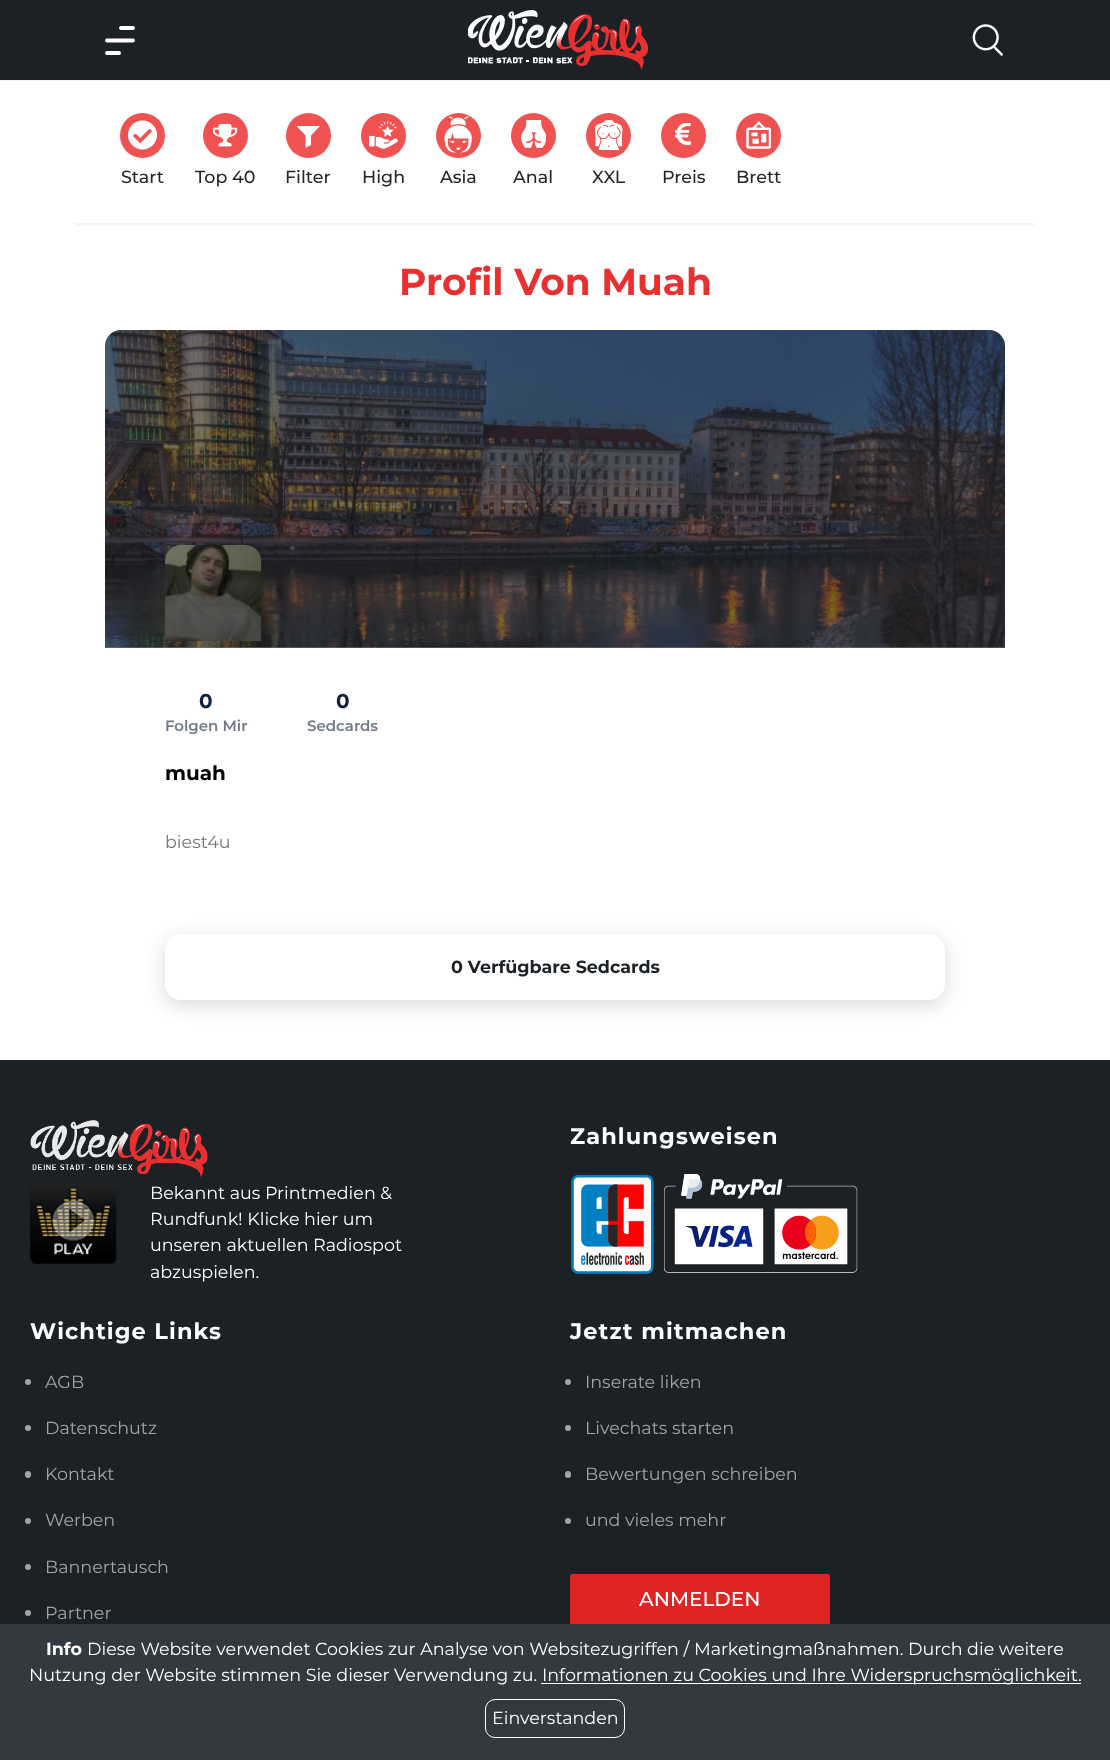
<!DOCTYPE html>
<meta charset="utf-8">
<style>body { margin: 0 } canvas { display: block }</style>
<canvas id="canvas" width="1110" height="1760"></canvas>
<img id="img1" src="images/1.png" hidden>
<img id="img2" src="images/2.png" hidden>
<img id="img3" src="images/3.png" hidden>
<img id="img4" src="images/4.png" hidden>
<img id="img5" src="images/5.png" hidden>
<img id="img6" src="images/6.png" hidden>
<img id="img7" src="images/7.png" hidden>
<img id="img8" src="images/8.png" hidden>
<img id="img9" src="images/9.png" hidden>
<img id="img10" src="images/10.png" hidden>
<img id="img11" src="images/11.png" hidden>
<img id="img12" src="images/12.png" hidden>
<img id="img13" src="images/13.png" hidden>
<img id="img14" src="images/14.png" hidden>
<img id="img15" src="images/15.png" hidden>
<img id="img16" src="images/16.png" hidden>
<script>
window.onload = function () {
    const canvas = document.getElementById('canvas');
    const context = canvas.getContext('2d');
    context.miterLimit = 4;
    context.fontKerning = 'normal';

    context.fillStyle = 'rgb(255, 255, 255)';
    context.fillRect(0, 0, 1110, 1760);
    context.fillStyle = 'rgb(28, 33, 38)';
    context.fillRect(0, 0, 1110, 80);
    context.fillStyle = 'rgb(245, 245, 245)';
    context.fillRect(0, 80, 1110, 1);
    context.beginPath();
    context.moveTo(121, 28);
    context.lineTo(133, 28);
    context.moveTo(107, 40.5);
    context.lineTo(133, 40.5);
    context.moveTo(107, 53);
    context.lineTo(119, 53);
    context.strokeStyle = 'rgb(255, 255, 255)';
    context.lineWidth = 3.9;
    context.lineCap = 'round';
    context.stroke();
    context.drawImage(document.getElementById('img1'), 468, 10, 180, 60);
    context.drawImage(document.getElementById('img2'), 972, 24, 31, 32);
    context.fillRect(75, 223, 960, 3);
    context.fillStyle = 'rgba(0, 0, 0, 0.05)';
    context.filter = 'blur(1px)';
    context.beginPath();
    context.roundRect(120, 114, 45, 45, 22.5);
    context.fill();
    context.filter = 'none';
    context.fillStyle = 'rgb(240, 82, 82)';
    context.beginPath();
    context.arc(142.5, 135.5, 22.5, 0, 2 * Math.PI);
    context.fill();
    context.drawImage(document.getElementById('img3'), 128, 120, 29, 30);
    context.fillStyle = 'rgba(0, 0, 0, 0.05)';
    context.filter = 'blur(1px)';
    context.beginPath();
    context.roundRect(203, 114, 45, 45, 22.5);
    context.fill();
    context.filter = 'none';
    context.fillStyle = 'rgb(240, 82, 82)';
    context.beginPath();
    context.arc(225.5, 135.5, 22.5, 0, 2 * Math.PI);
    context.fill();
    context.drawImage(document.getElementById('img4'), 213, 123, 25, 24);
    context.fillStyle = 'rgba(0, 0, 0, 0.05)';
    context.filter = 'blur(1px)';
    context.beginPath();
    context.roundRect(286, 114, 45, 45, 22.5);
    context.fill();
    context.filter = 'none';
    context.fillStyle = 'rgb(240, 82, 82)';
    context.beginPath();
    context.arc(308.5, 135.5, 22.5, 0, 2 * Math.PI);
    context.fill();
    context.fillStyle = 'rgb(255, 255, 255)';
    context.beginPath();
    context.moveTo(320, 126);
    context.lineTo(296.5, 126);
    context.lineTo(305.5, 135.5);
    context.lineTo(305.5, 148);
    context.lineTo(311, 145);
    context.lineTo(311, 135.5);
    context.closePath();
    context.fill();
    context.fillStyle = 'rgba(0, 0, 0, 0.05)';
    context.filter = 'blur(1px)';
    context.beginPath();
    context.roundRect(361, 114, 45, 45, 22.5);
    context.fill();
    context.filter = 'none';
    context.fillStyle = 'rgb(240, 82, 82)';
    context.beginPath();
    context.arc(383.5, 135.5, 22.5, 0, 2 * Math.PI);
    context.fill();
    context.drawImage(document.getElementById('img5'), 369, 121, 29, 28);
    context.fillStyle = 'rgba(0, 0, 0, 0.05)';
    context.filter = 'blur(1px)';
    context.beginPath();
    context.roundRect(436, 114, 45, 45, 22.5);
    context.fill();
    context.filter = 'none';
    context.fillStyle = 'rgb(240, 82, 82)';
    context.beginPath();
    context.arc(458.5, 135.5, 22.5, 0, 2 * Math.PI);
    context.fill();
    context.drawImage(document.getElementById('img6'), 444, 116, 28, 37);
    context.fillStyle = 'rgba(0, 0, 0, 0.05)';
    context.filter = 'blur(1px)';
    context.beginPath();
    context.roundRect(511, 114, 45, 45, 22.5);
    context.fill();
    context.filter = 'none';
    context.fillStyle = 'rgb(240, 82, 82)';
    context.beginPath();
    context.arc(533.5, 135.5, 22.5, 0, 2 * Math.PI);
    context.fill();
    context.drawImage(document.getElementById('img7'), 521, 120, 25, 28);
    context.fillStyle = 'rgba(0, 0, 0, 0.05)';
    context.filter = 'blur(1px)';
    context.beginPath();
    context.roundRect(586, 114, 45, 45, 22.5);
    context.fill();
    context.filter = 'none';
    context.fillStyle = 'rgb(240, 82, 82)';
    context.beginPath();
    context.arc(608.5, 135.5, 22.5, 0, 2 * Math.PI);
    context.fill();
    context.drawImage(document.getElementById('img8'), 595, 120, 28, 30);
    context.fillStyle = 'rgba(0, 0, 0, 0.05)';
    context.filter = 'blur(1px)';
    context.beginPath();
    context.roundRect(661, 114, 45, 45, 22.5);
    context.fill();
    context.filter = 'none';
    context.fillStyle = 'rgb(240, 82, 82)';
    context.beginPath();
    context.arc(683.5, 135.5, 22.5, 0, 2 * Math.PI);
    context.fill();
    context.drawImage(document.getElementById('img9'), 675, 123, 16, 23);
    context.fillStyle = 'rgba(0, 0, 0, 0.05)';
    context.filter = 'blur(1px)';
    context.beginPath();
    context.roundRect(736, 114, 45, 45, 22.5);
    context.fill();
    context.filter = 'none';
    context.fillStyle = 'rgb(240, 82, 82)';
    context.beginPath();
    context.arc(758.5, 135.5, 22.5, 0, 2 * Math.PI);
    context.fill();
    context.drawImage(document.getElementById('img10'), 746, 121, 25, 28);
    context.drawImage(document.getElementById('img11'), 105, 330, 901, 318);
    context.fillStyle = 'rgba(28, 33, 38, 0.6)';
    context.beginPath();
    context.roundRect(105, 330, 900, 318, [16, 16, 0, 0]);
    context.fill();
    context.drawImage(document.getElementById('img12'), 165, 545, 97, 97);
    context.save();
    context.beginPath();
    context.moveTo(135, 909);
    context.lineTo(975, 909);
    context.lineTo(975, 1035);
    context.lineTo(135, 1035);
    context.closePath();
    context.moveTo(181, 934);
    context.lineTo(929, 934);
    context.bezierCurveTo(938, 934, 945, 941, 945, 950);
    context.lineTo(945, 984);
    context.bezierCurveTo(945, 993, 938, 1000, 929, 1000);
    context.lineTo(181, 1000);
    context.bezierCurveTo(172, 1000, 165, 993, 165, 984);
    context.lineTo(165, 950);
    context.bezierCurveTo(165, 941, 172, 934, 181, 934);
    context.closePath();
    context.clip('evenodd');
    context.fillStyle = 'rgba(0, 0, 0, 0.15)';
    context.filter = 'blur(9.5px)';
    context.beginPath();
    context.roundRect(165, 939, 780, 66, 16);
    context.fill();
    context.filter = 'none';
    context.restore();
    context.fillStyle = 'rgb(28, 33, 38)';
    context.fillRect(0, 1060, 1110, 564);
    context.drawImage(document.getElementById('img13'), 571, 1174, 83, 100);
    context.drawImage(document.getElementById('img14'), 664, 1174, 194, 99);
    context.drawImage(document.getElementById('img15'), 30, 1120, 178, 57);
    context.drawImage(document.getElementById('img16'), 30, 1180, 87, 84);
    context.fillStyle = 'rgb(163, 163, 163)';
    context.beginPath();
    context.arc(28, 1382, 3, 0, 2 * Math.PI);
    context.fill();
    context.beginPath();
    context.arc(28, 1428, 3, 0, 2 * Math.PI);
    context.fill();
    context.beginPath();
    context.roundRect(25, 1471, 6, 7, 3);
    context.fill();
    context.beginPath();
    context.arc(28, 1521, 3, 0, 2 * Math.PI);
    context.fill();
    context.beginPath();
    context.arc(28, 1567, 3, 0, 2 * Math.PI);
    context.fill();
    context.beginPath();
    context.arc(28, 1613, 3, 0, 2 * Math.PI);
    context.fill();
    context.beginPath();
    context.arc(568, 1382, 3, 0, 2 * Math.PI);
    context.fill();
    context.beginPath();
    context.arc(568, 1428, 3, 0, 2 * Math.PI);
    context.fill();
    context.beginPath();
    context.roundRect(565, 1471, 6, 7, 3);
    context.fill();
    context.beginPath();
    context.arc(568, 1521, 3, 0, 2 * Math.PI);
    context.fill();
    context.fillStyle = 'rgb(224, 36, 36)';
    context.beginPath();
    context.roundRect(570, 1574, 260, 52, 2.5);
    context.fill();
    context.fillStyle = 'rgb(51, 57, 64)';
    context.fillRect(0, 1624, 1110, 136);
    context.fillStyle = 'rgb(255, 255, 255)';
    context.fillRect(541, 1683, 540, 1);
    context.beginPath();
    context.roundRect(485.5, 1699.5, 139, 38, 9.5);
    context.lineWidth = 1;
    context.stroke();
    context.font = '500 17.5px Montserrat';
    context.fillStyle = 'rgb(38, 38, 38)';
    context.fillText('Start', 121, 183);
    context.fillText('Top 40', 195, 183);
    context.fillText('Filter', 285, 183);
    context.fillText('High', 362, 183);
    context.fillText('Asia', 440, 183);
    context.fillText('Anal', 513, 183);
    context.fillText('XXL', 592, 183);
    context.fillText('Preis', 662, 183);
    context.fillText('Brett', 736, 183);
    context.font = 'bold 37.5px Montserrat';
    context.fillStyle = 'rgb(233, 48, 48)';
    context.fillText('Profil Von Muah', 399, 295);
    context.font = 'bold 20px Montserrat';
    context.fillStyle = 'rgb(17, 36, 61)';
    context.fillText('0', 199, 708);
    context.font = '600 15px Montserrat';
    context.fillStyle = 'rgb(112, 122, 137)';
    context.fillText('Folgen Mir', 165, 731);
    context.font = 'bold 20px Montserrat';
    context.fillStyle = 'rgb(17, 36, 61)';
    context.fillText('0', 336, 708);
    context.font = '600 15px Montserrat';
    context.fillStyle = 'rgb(112, 122, 137)';
    context.fillText('Sedcards', 307, 731);
    context.font = 'bold 20px Montserrat';
    context.fillStyle = 'rgb(0, 0, 0)';
    context.fillText('muah', 165, 780);
    context.font = '17.5px Montserrat';
    context.fillStyle = 'rgb(117, 117, 117)';
    context.fillText('biest4u', 165, 848);
    context.font = 'bold 17.5px Montserrat';
    context.fillStyle = 'rgb(28, 33, 38)';
    context.fillText('0 Verfügbare Sedcards', 451, 973);
    context.letterSpacing = '1.1px';
    context.font = 'bold 22.5px Montserrat';
    context.fillStyle = 'rgb(255, 255, 255)';
    context.fillText('Zahlungsweisen', 570, 1144);
    context.letterSpacing = '0px';
    context.font = '17.5px Montserrat';
    context.fillText('Bekannt aus Printmedien &', 150, 1199);
    context.fillText('Rundfunk! Klicke hier um', 150, 1225);
    context.fillText('unseren aktuellen Radiospot', 150, 1251);
    context.fillText('abzuspielen.', 150, 1278);
    context.letterSpacing = '1.1px';
    context.font = 'bold 22.5px Montserrat';
    context.fillText('Wichtige Links', 30, 1339);
    context.letterSpacing = '0px';
    context.font = '17.5px Montserrat';
    context.fillStyle = 'rgb(163, 163, 163)';
    context.fillText('AGB', 45, 1388);
    context.fillText('Datenschutz', 45, 1434);
    context.fillText('Kontakt', 45, 1480);
    context.fillText('Werben', 45, 1526);
    context.fillText('Bannertausch', 45, 1573);
    context.fillText('Partner', 45, 1619);
    context.letterSpacing = '1.1px';
    context.font = 'bold 22.5px Montserrat';
    context.fillStyle = 'rgb(255, 255, 255)';
    context.fillText('Jetzt mitmachen', 570, 1339);
    context.letterSpacing = '0px';
    context.font = '17.5px Montserrat';
    context.fillStyle = 'rgb(163, 163, 163)';
    context.fillText('Inserate liken', 585, 1388);
    context.fillText('Livechats starten', 585, 1434);
    context.fillText('Bewertungen schreiben', 585, 1480);
    context.fillText('und vieles mehr', 585, 1526);
    context.font = '500 20px Montserrat';
    context.fillStyle = 'rgb(255, 255, 255)';
    context.fillText('ANMELDEN', 639, 1606);
    context.font = 'bold 17.5px Montserrat';
    context.fillText('Info', 46, 1655);
    context.font = '17.5px Montserrat';
    context.fillText('Diese Website verwendet Cookies zur Analyse von Websitezugriffen / Marketingmaßnahmen. Durch die weitere', 87, 1655);
    context.fillText('Nutzung der Website stimmen Sie dieser Verwendung zu.', 29, 1681);
    context.fillText('Informationen zu Cookies und Ihre Widerspruchsmöglichkeit.', 542, 1681);
    context.fillText('Einverstanden', 492, 1724);
};
</script>
